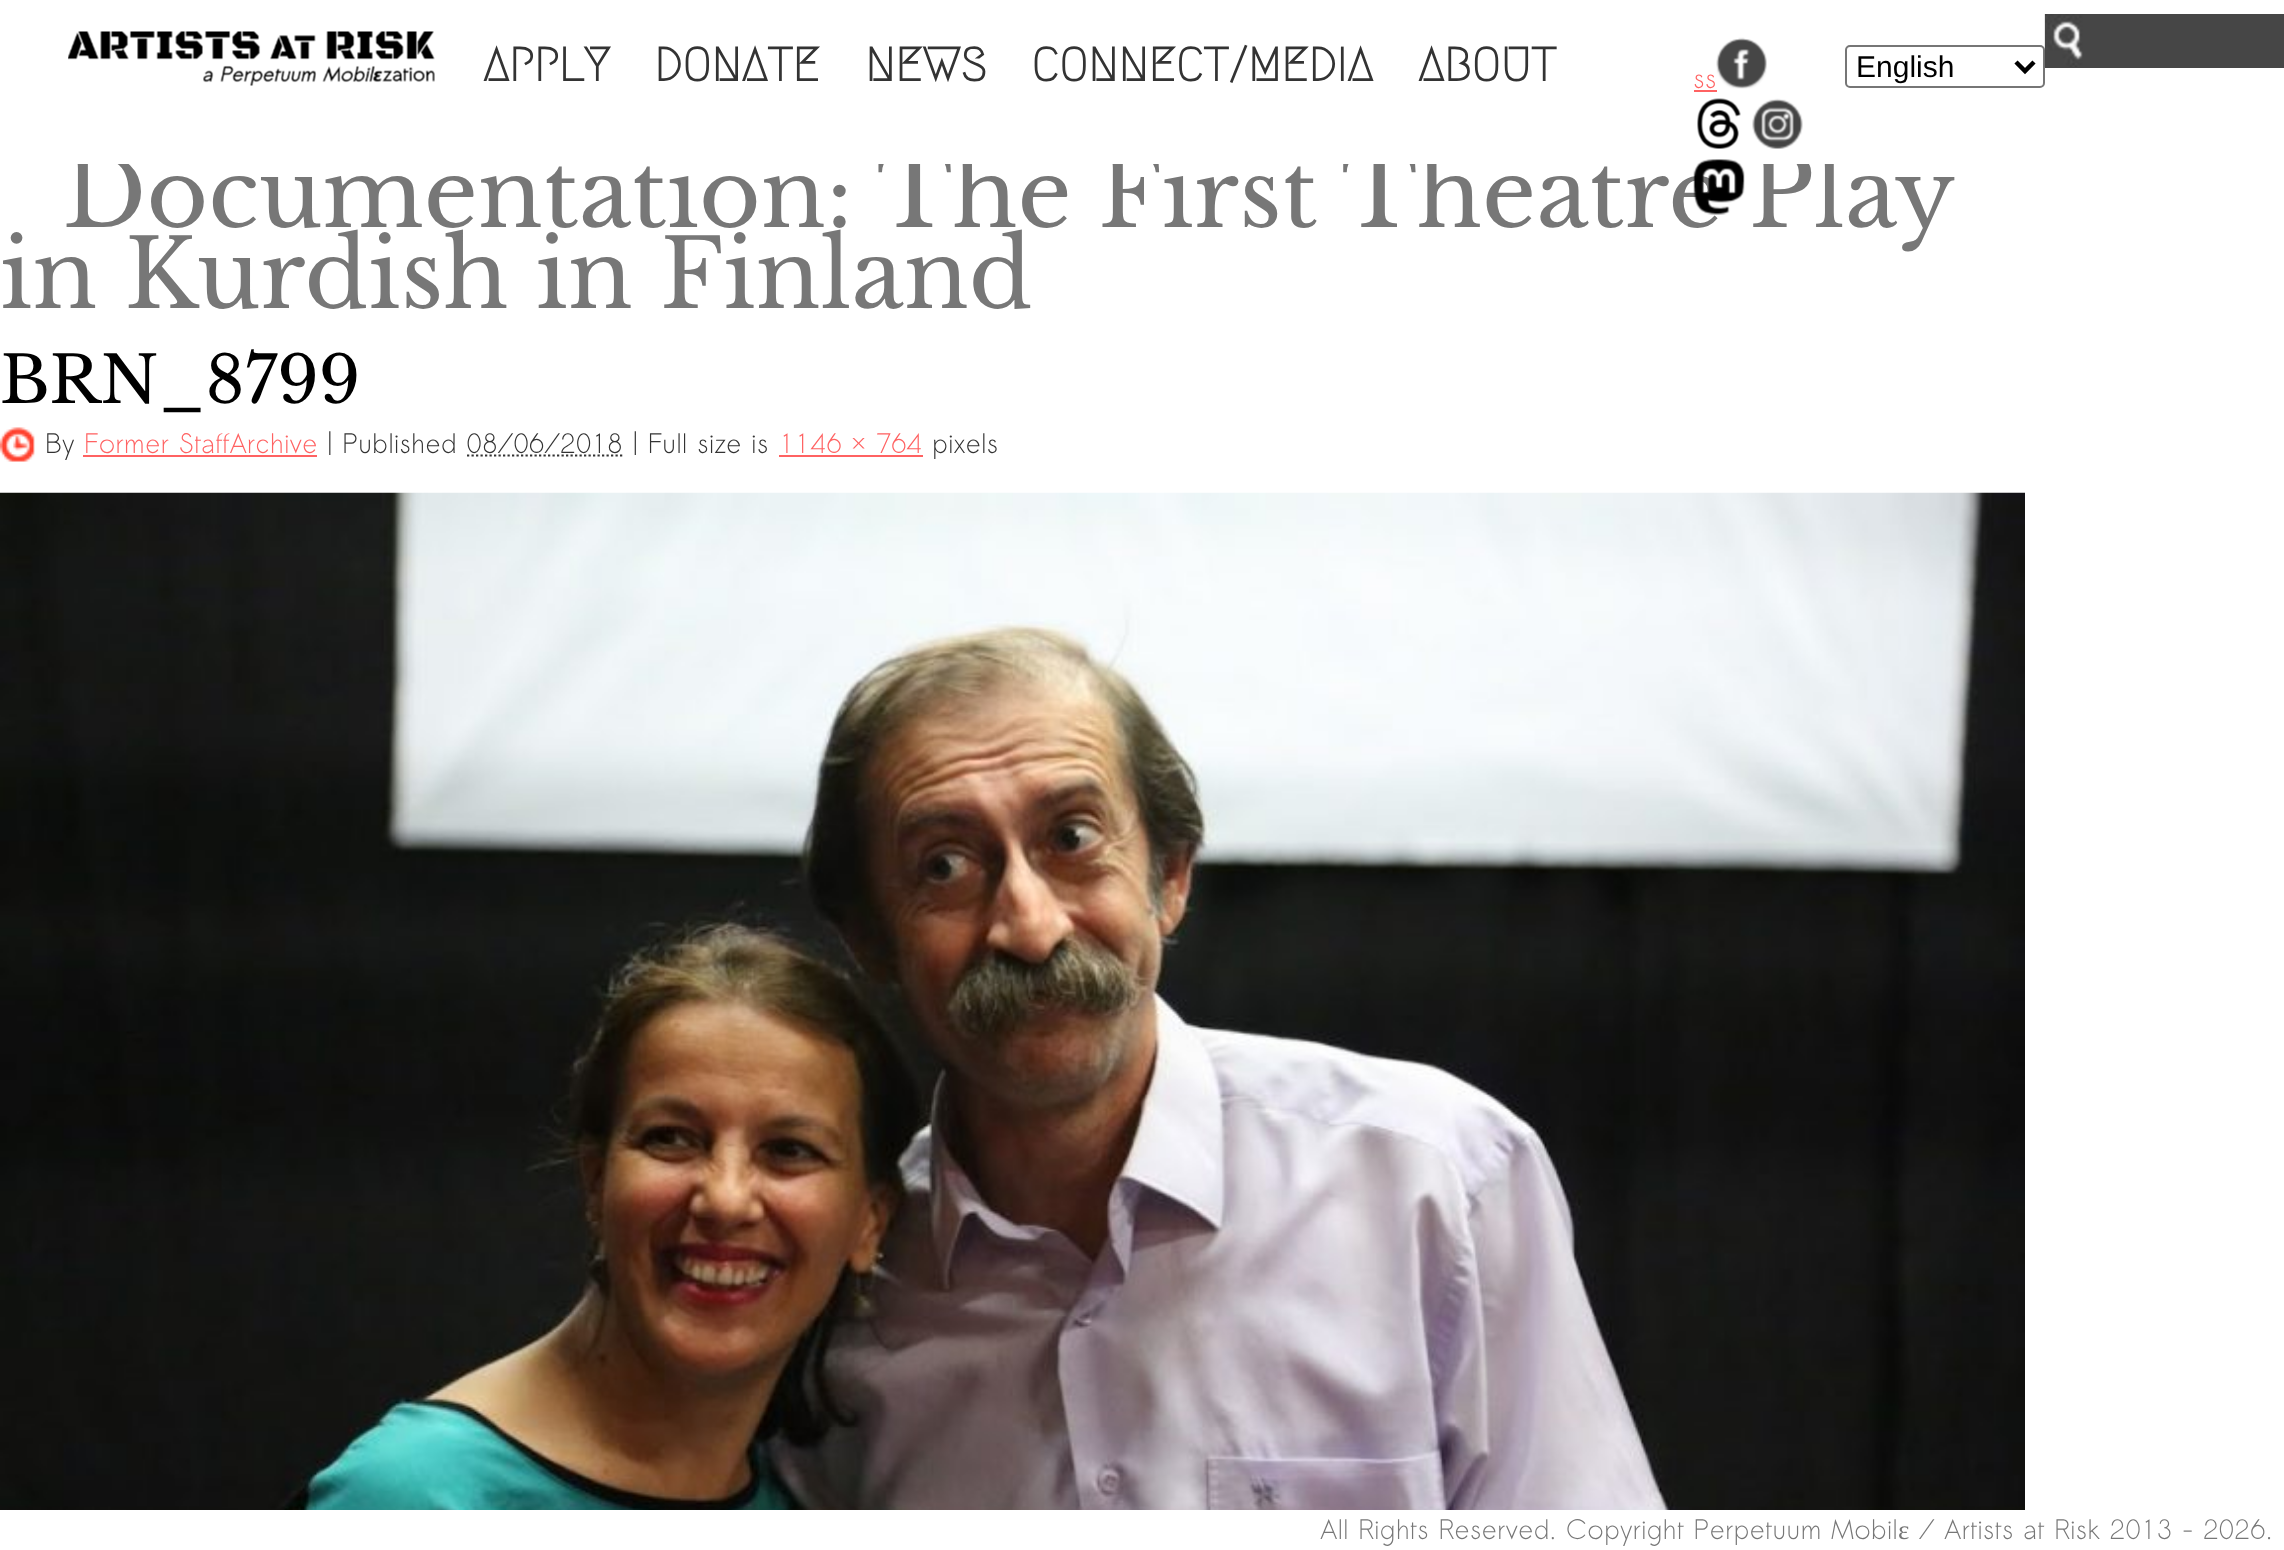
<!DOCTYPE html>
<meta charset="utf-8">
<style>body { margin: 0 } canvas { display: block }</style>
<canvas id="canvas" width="2284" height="1550"></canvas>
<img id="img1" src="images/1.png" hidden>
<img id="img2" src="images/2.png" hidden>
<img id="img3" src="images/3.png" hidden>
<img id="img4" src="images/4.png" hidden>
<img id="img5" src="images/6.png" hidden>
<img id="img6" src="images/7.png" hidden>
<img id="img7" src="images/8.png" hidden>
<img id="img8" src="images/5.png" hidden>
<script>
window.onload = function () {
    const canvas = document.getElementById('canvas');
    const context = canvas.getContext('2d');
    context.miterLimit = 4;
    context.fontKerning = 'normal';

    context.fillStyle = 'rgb(255, 255, 255)';
    context.fillRect(0, 0, 2284, 1550);
    context.drawImage(document.getElementById('img1'), 68, 31, 367, 55);
    context.fillStyle = 'rgb(255, 98, 98)';
    context.fillRect(1694, 90, 23, 2);
    context.drawImage(document.getElementById('img2'), 1716, 37, 51, 52);
    context.drawImage(document.getElementById('img3'), 1697, 98, 44, 51);
    context.drawImage(document.getElementById('img4'), 1752, 98, 51, 51);
    context.beginPath();
    context.roundRect(1846, 46, 198, 41, 4);
    context.strokeStyle = 'rgb(118, 118, 118)';
    context.lineWidth = 2;
    context.stroke();
    context.beginPath();
    context.moveTo(2016, 62);
    context.lineTo(2025, 71);
    context.lineTo(2034, 62);
    context.strokeStyle = 'rgb(0, 0, 0)';
    context.lineWidth = 4.5;
    context.stroke();
    context.fillStyle = 'rgb(70, 70, 70)';
    context.fillRect(2045, 14, 239, 54);
    context.drawImage(document.getElementById('img5'), 2044, 14, 39, 53);
    context.drawImage(document.getElementById('img6'), 0, 427, 35, 35);
    context.fillStyle = 'rgb(255, 98, 98)';
    context.fillRect(83, 455, 234, 2);
    context.fillRect(779, 455, 144, 2);
    context.beginPath();
    context.moveTo(467, 455.5);
    context.lineTo(623.5, 455.5);
    context.strokeStyle = 'rgb(51, 51, 51)';
    context.lineWidth = 2.2;
    context.setLineDash([2.25, 2.25]);
    context.stroke();
    context.drawImage(document.getElementById('img7'), 0, 492, 2025, 1018);
    context.font = 'bold 47.25px Megrim';
    context.fillStyle = 'rgb(51, 51, 51)';
    context.fillText('APPLY', 483, 81);
    context.fillText('DONATE', 654, 81);
    context.fillText('NEWS', 865, 81);
    context.fillText('CONNECT/MEDIA', 1031, 81);
    context.fillText('ABOUT', 1418, 81);
    context.font = '27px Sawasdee';
    context.fillStyle = 'rgb(255, 98, 98)';
    context.fillText('ss', 1693, 88);
    context.font = '30px Liberation Sans';
    context.fillStyle = 'rgb(0, 0, 0)';
    context.fillText('English', 1856, 77);
    context.save();
    context.beginPath();
    context.rect(0, 164, 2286, 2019);
    context.clip();
    context.wordSpacing = '-0.5px';
    context.font = '94.5px Libre Baskerville';
    context.fillStyle = 'rgb(119, 119, 119)';
    context.fillText('Documentation: The First Theatre Play', 63, 227);
    context.restore();
    context.drawImage(document.getElementById('img8'), 1693, 159, 52, 56);
    context.font = '94.5px Libre Baskerville';
    context.fillStyle = 'rgb(119, 119, 119)';
    context.fillText('in Kurdish in Finland', 0, 308);
    context.font = '64.75px Libre Baskerville';
    context.fillStyle = 'rgb(0, 0, 0)';
    context.fillText('BRN_8799', 0, 403);
    context.font = '27px Sawasdee';
    context.fillStyle = 'rgb(51, 51, 51)';
    context.fillText('By', 45, 453);
    context.fillStyle = 'rgb(255, 98, 98)';
    context.fillText('Former StaffArchive', 84, 453);
    context.fillStyle = 'rgb(51, 51, 51)';
    context.fillText('| Published 08/06/2018 | Full size is', 327, 453);
    context.fillStyle = 'rgb(255, 98, 98)';
    context.fillText('1146 × 764', 779, 453);
    context.fillStyle = 'rgb(51, 51, 51)';
    context.fillText('pixels', 932, 453);
    context.fillStyle = 'rgb(119, 119, 119)';
    context.fillText('All Rights Reserved. Copyright Perpetuum Mobil', 1320, 1539);
    context.font = '27px Liberation Serif';
    context.fillText('ε', 1898, 1539);
    context.font = '27px Sawasdee';
    context.fillText('/ Artists at Risk 2013 - 2026.', 1919, 1539);
};
</script>
